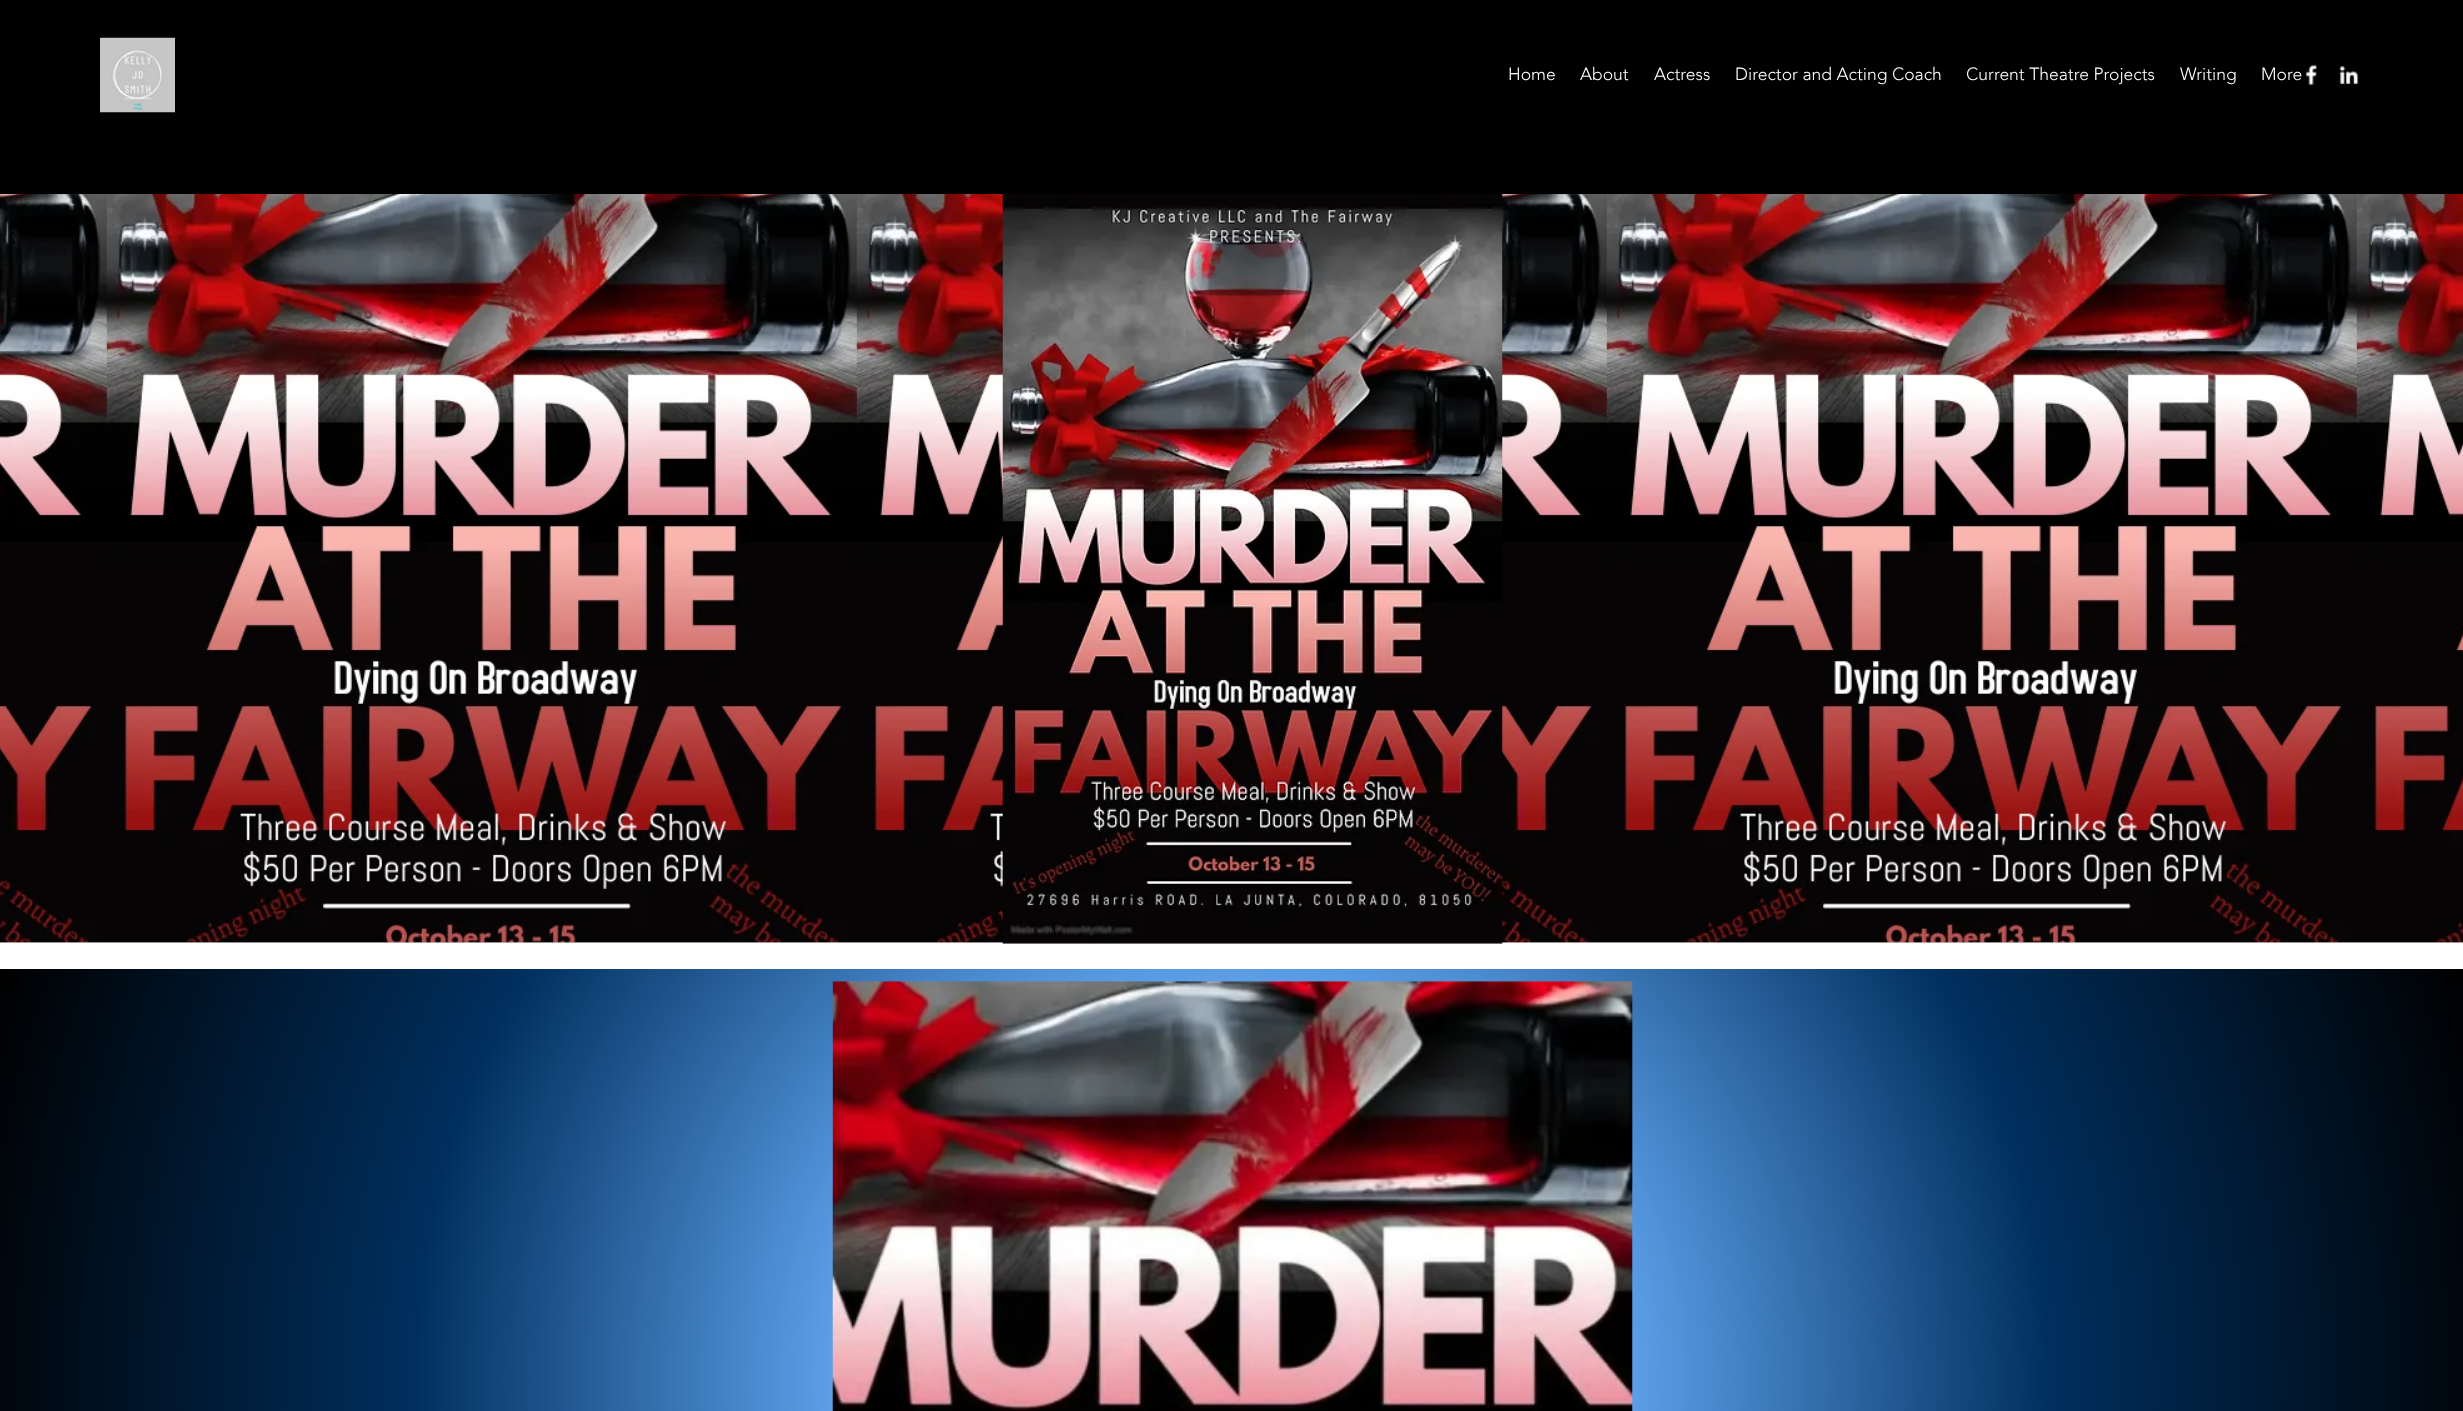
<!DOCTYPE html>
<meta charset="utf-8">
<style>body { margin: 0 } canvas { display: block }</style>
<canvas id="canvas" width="2463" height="1411"></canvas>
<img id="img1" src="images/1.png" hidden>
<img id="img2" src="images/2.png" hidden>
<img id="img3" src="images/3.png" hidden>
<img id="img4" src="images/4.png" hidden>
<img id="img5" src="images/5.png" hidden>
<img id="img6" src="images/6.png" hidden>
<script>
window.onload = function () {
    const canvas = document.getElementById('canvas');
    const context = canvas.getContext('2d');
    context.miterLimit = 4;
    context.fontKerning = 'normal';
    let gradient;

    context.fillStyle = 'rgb(255, 255, 255)';
    context.fillRect(0, 0, 2463, 1411);
    context.fillStyle = 'rgb(0, 0, 0)';
    context.fillRect(0, 0, 2463, 194);
    context.drawImage(document.getElementById('img1'), 100, 37, 75, 76);
    context.drawImage(document.getElementById('img2'), 2306, 64, 11, 22);
    context.drawImage(document.getElementById('img3'), 2339, 66, 20, 19);
    context.fillStyle = 'rgb(195, 195, 195)';
    context.fillRect(0, 942, 2463, 1);
    context.drawImage(document.getElementById('img4'), 0, 194, 2463, 749);
    context.drawImage(document.getElementById('img5'), 1002, 194, 501, 750);
    gradient = context.createRadialGradient(1232, 1381, 0, 1232, 1381, 1299);
    gradient.addColorStop(0, 'rgb(228, 235, 252)');
    gradient.addColorStop(0.32, 'rgb(88, 155, 227)');
    gradient.addColorStop(0.63, 'rgb(0, 47, 94)');
    gradient.addColorStop(1, 'rgb(0, 0, 0)');
    context.fillStyle = gradient;
    context.fillRect(0, 969, 2463, 442);
    context.drawImage(document.getElementById('img6'), 832, 981, 801, 430);
    context.font = '300 17.5px "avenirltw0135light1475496"';
    context.fillStyle = 'rgb(255, 255, 255)';
    context.fillText('Home', 1508, 80);
    context.fillText('About', 1580, 80);
    context.fillText('Actress', 1654, 80);
    context.fillText('Director and Acting Coach', 1735, 80);
    context.fillText('Current Theatre Projects', 1966, 80);
    context.fillText('Writing', 2180, 80);
    context.fillText('More', 2261, 80);
};
</script>
